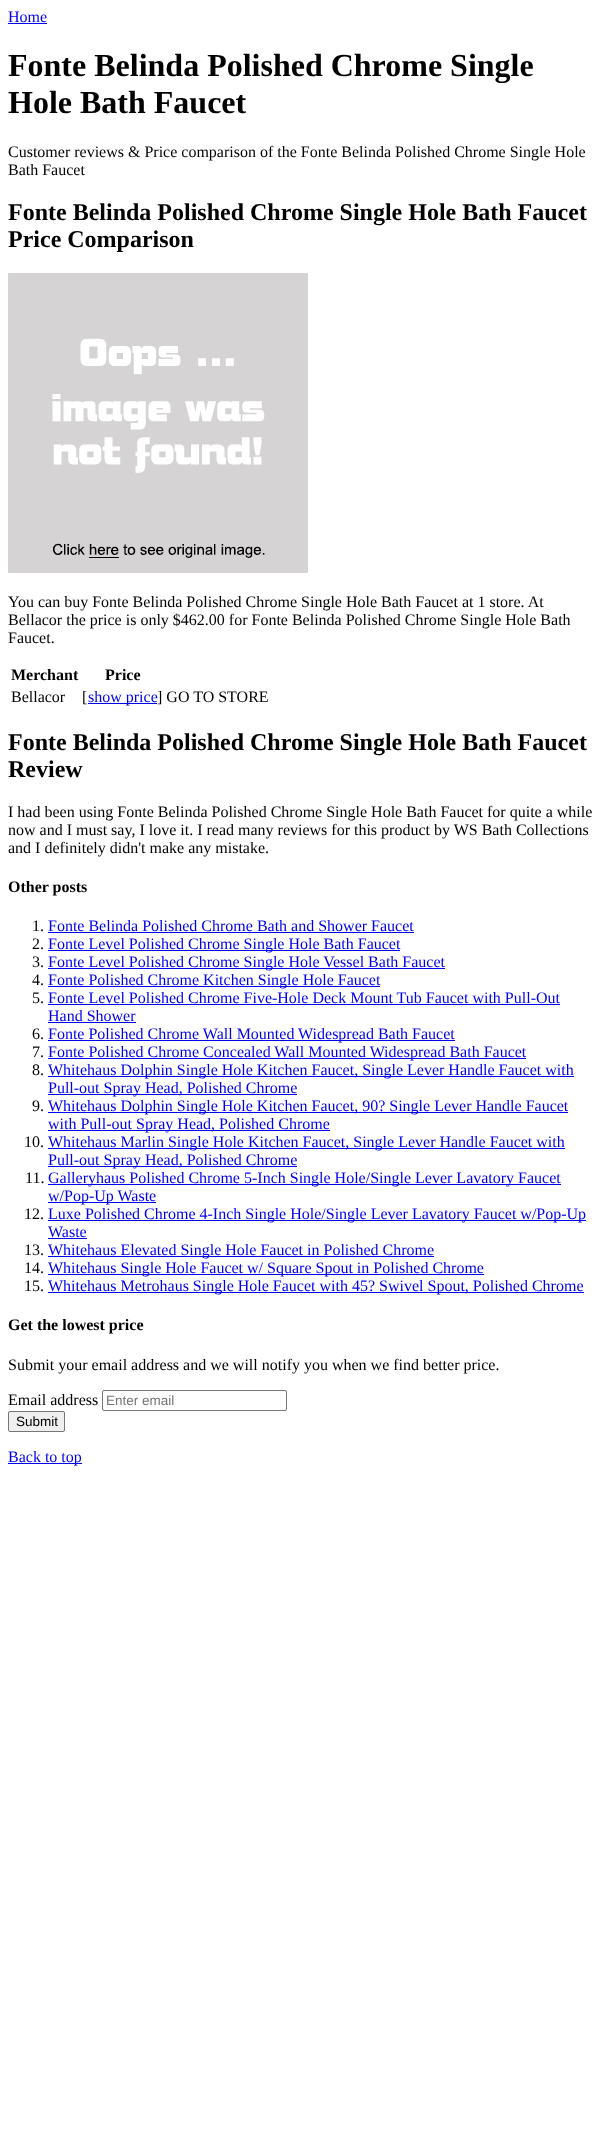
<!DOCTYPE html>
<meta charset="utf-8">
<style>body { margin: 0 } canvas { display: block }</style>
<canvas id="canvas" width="601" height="2132"></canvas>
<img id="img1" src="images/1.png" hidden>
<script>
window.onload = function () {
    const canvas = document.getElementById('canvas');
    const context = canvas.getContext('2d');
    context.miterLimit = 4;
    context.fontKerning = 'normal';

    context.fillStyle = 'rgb(255, 255, 255)';
    context.fillRect(0, 0, 601, 2132);
    context.fillStyle = 'rgb(0, 0, 238)';
    context.fillRect(8, 23, 39, 1);
    context.drawImage(document.getElementById('img1'), 8, 273, 300, 300);
    context.fillRect(88, 703, 69, 1);
    context.fillRect(48, 932, 366, 1);
    context.fillRect(48, 950, 352, 1);
    context.fillRect(48, 968, 397, 1);
    context.fillRect(48, 986, 332, 1);
    context.fillRect(48, 1004, 512, 1);
    context.fillRect(48, 1022, 88, 1);
    context.fillRect(48, 1040, 407, 1);
    context.fillRect(48, 1058, 478, 1);
    context.fillRect(48, 1076, 526, 1);
    context.fillRect(48, 1094, 249, 1);
    context.fillRect(48, 1112, 520, 1);
    context.fillRect(48, 1130, 282, 1);
    context.fillRect(48, 1148, 517, 1);
    context.fillRect(48, 1166, 249, 1);
    context.fillRect(48, 1184, 513, 1);
    context.fillRect(48, 1202, 108, 1);
    context.fillRect(48, 1220, 538, 1);
    context.fillRect(48, 1238, 39, 1);
    context.fillRect(48, 1256, 386, 1);
    context.fillRect(48, 1274, 436, 1);
    context.fillRect(48, 1292, 536, 1);
    context.beginPath();
    context.roundRect(102.5, 1390.5, 184, 20, 1.5);
    context.strokeStyle = 'rgb(118, 118, 118)';
    context.stroke();
    context.fillStyle = 'rgb(239, 239, 239)';
    context.beginPath();
    context.roundRect(8.5, 1411.5, 56, 20, 1.5);
    context.fill();
    context.stroke();
    context.fillStyle = 'rgb(0, 0, 238)';
    context.fillRect(8, 1463, 74, 1);
    context.font = '16px Liberation Serif';
    context.fillText('Home', 8, 22);
    context.font = 'bold 32px Liberation Serif';
    context.fillStyle = 'rgb(0, 0, 0)';
    context.fillText('Fonte Belinda Polished Chrome Single', 8, 76);
    context.fillText('Hole Bath Faucet', 8, 113);
    context.font = '16px Liberation Serif';
    context.fillText('Customer reviews & Price comparison of the Fonte Belinda Polished Chrome Single Hole', 8, 157);
    context.fillText('Bath Faucet', 8, 175);
    context.font = 'bold 24px Liberation Serif';
    context.fillText('Fonte Belinda Polished Chrome Single Hole Bath Faucet', 8, 220);
    context.fillText('Price Comparison', 8, 247);
    context.font = '16px Liberation Serif';
    context.fillText('You can buy Fonte Belinda Polished Chrome Single Hole Bath Faucet at 1 store. At', 8, 607);
    context.fillText('Bellacor the price is only $462.00 for Fonte Belinda Polished Chrome Single Hole Bath', 8, 625);
    context.fillText('Faucet.', 8, 643);
    context.font = 'bold 16px Liberation Serif';
    context.fillText('Merchant', 11, 680);
    context.fillText('Price', 105, 680);
    context.font = '16px Liberation Serif';
    context.fillText('Bellacor', 11, 702);
    context.fillText('[', 82, 702);
    context.fillStyle = 'rgb(0, 0, 238)';
    context.fillText('show price', 88, 702);
    context.fillStyle = 'rgb(0, 0, 0)';
    context.fillText('] GO TO STORE', 157, 702);
    context.font = 'bold 24px Liberation Serif';
    context.fillText('Fonte Belinda Polished Chrome Single Hole Bath Faucet', 8, 750);
    context.fillText('Review', 8, 777);
    context.font = '16px Liberation Serif';
    context.fillText('I had been using Fonte Belinda Polished Chrome Single Hole Bath Faucet for quite a while', 8, 817);
    context.fillText('now and I must say, I love it. I read many reviews for this product by WS Bath Collections', 8, 835);
    context.fillText('and I definitely didn\'t make any mistake.', 8, 853);
    context.font = 'bold 16px Liberation Serif';
    context.fillText('Other posts', 8, 892);
    context.font = '16px Liberation Serif';
    context.fillText('1.', 32, 931);
    context.fillStyle = 'rgb(0, 0, 238)';
    context.fillText('Fonte Belinda Polished Chrome Bath and Shower Faucet', 48, 931);
    context.fillStyle = 'rgb(0, 0, 0)';
    context.fillText('2.', 32, 949);
    context.fillStyle = 'rgb(0, 0, 238)';
    context.fillText('Fonte Level Polished Chrome Single Hole Bath Faucet', 48, 949);
    context.fillStyle = 'rgb(0, 0, 0)';
    context.fillText('3.', 32, 967);
    context.fillStyle = 'rgb(0, 0, 238)';
    context.fillText('Fonte Level Polished Chrome Single Hole Vessel Bath Faucet', 48, 967);
    context.fillStyle = 'rgb(0, 0, 0)';
    context.fillText('4.', 32, 985);
    context.fillStyle = 'rgb(0, 0, 238)';
    context.fillText('Fonte Polished Chrome Kitchen Single Hole Faucet', 48, 985);
    context.fillStyle = 'rgb(0, 0, 0)';
    context.fillText('5.', 32, 1003);
    context.fillStyle = 'rgb(0, 0, 238)';
    context.fillText('Fonte Level Polished Chrome Five-Hole Deck Mount Tub Faucet with Pull-Out', 48, 1003);
    context.fillText('Hand Shower', 48, 1021);
    context.fillStyle = 'rgb(0, 0, 0)';
    context.fillText('6.', 32, 1039);
    context.fillStyle = 'rgb(0, 0, 238)';
    context.fillText('Fonte Polished Chrome Wall Mounted Widespread Bath Faucet', 48, 1039);
    context.fillStyle = 'rgb(0, 0, 0)';
    context.fillText('7.', 32, 1057);
    context.fillStyle = 'rgb(0, 0, 238)';
    context.fillText('Fonte Polished Chrome Concealed Wall Mounted Widespread Bath Faucet', 48, 1057);
    context.fillStyle = 'rgb(0, 0, 0)';
    context.fillText('8.', 32, 1075);
    context.fillStyle = 'rgb(0, 0, 238)';
    context.fillText('Whitehaus Dolphin Single Hole Kitchen Faucet, Single Lever Handle Faucet with', 48, 1075);
    context.fillText('Pull-out Spray Head, Polished Chrome', 48, 1093);
    context.fillStyle = 'rgb(0, 0, 0)';
    context.fillText('9.', 32, 1111);
    context.fillStyle = 'rgb(0, 0, 238)';
    context.fillText('Whitehaus Dolphin Single Hole Kitchen Faucet, 90? Single Lever Handle Faucet', 48, 1111);
    context.fillText('with Pull-out Spray Head, Polished Chrome', 48, 1129);
    context.fillStyle = 'rgb(0, 0, 0)';
    context.fillText('10.', 24, 1147);
    context.fillStyle = 'rgb(0, 0, 238)';
    context.fillText('Whitehaus Marlin Single Hole Kitchen Faucet, Single Lever Handle Faucet with', 48, 1147);
    context.fillText('Pull-out Spray Head, Polished Chrome', 48, 1165);
    context.fillStyle = 'rgb(0, 0, 0)';
    context.fillText('11.', 25, 1183);
    context.fillStyle = 'rgb(0, 0, 238)';
    context.fillText('Galleryhaus Polished Chrome 5-Inch Single Hole/Single Lever Lavatory Faucet', 48, 1183);
    context.fillText('w/Pop-Up Waste', 48, 1201);
    context.fillStyle = 'rgb(0, 0, 0)';
    context.fillText('12.', 24, 1219);
    context.fillStyle = 'rgb(0, 0, 238)';
    context.fillText('Luxe Polished Chrome 4-Inch Single Hole/Single Lever Lavatory Faucet w/Pop-Up', 48, 1219);
    context.fillText('Waste', 48, 1237);
    context.fillStyle = 'rgb(0, 0, 0)';
    context.fillText('13.', 24, 1255);
    context.fillStyle = 'rgb(0, 0, 238)';
    context.fillText('Whitehaus Elevated Single Hole Faucet in Polished Chrome', 48, 1255);
    context.fillStyle = 'rgb(0, 0, 0)';
    context.fillText('14.', 24, 1273);
    context.fillStyle = 'rgb(0, 0, 238)';
    context.fillText('Whitehaus Single Hole Faucet w/ Square Spout in Polished Chrome', 48, 1273);
    context.fillStyle = 'rgb(0, 0, 0)';
    context.fillText('15.', 24, 1291);
    context.fillStyle = 'rgb(0, 0, 238)';
    context.fillText('Whitehaus Metrohaus Single Hole Faucet with 45? Swivel Spout, Polished Chrome', 48, 1291);
    context.font = 'bold 16px Liberation Serif';
    context.fillStyle = 'rgb(0, 0, 0)';
    context.fillText('Get the lowest price', 8, 1330);
    context.font = '16px Liberation Serif';
    context.fillText('Submit your email address and we will notify you when we find better price.', 8, 1370);
    context.fillText('Email address', 8, 1405);
    context.font = '13.5px Liberation Sans';
    context.fillStyle = 'rgb(117, 117, 117)';
    context.fillText('Enter email', 106, 1405);
    context.fillStyle = 'rgb(0, 0, 0)';
    context.fillText('Submit', 16, 1426);
    context.font = '16px Liberation Serif';
    context.fillStyle = 'rgb(0, 0, 238)';
    context.fillText('Back to top', 8, 1462);
};
</script>
